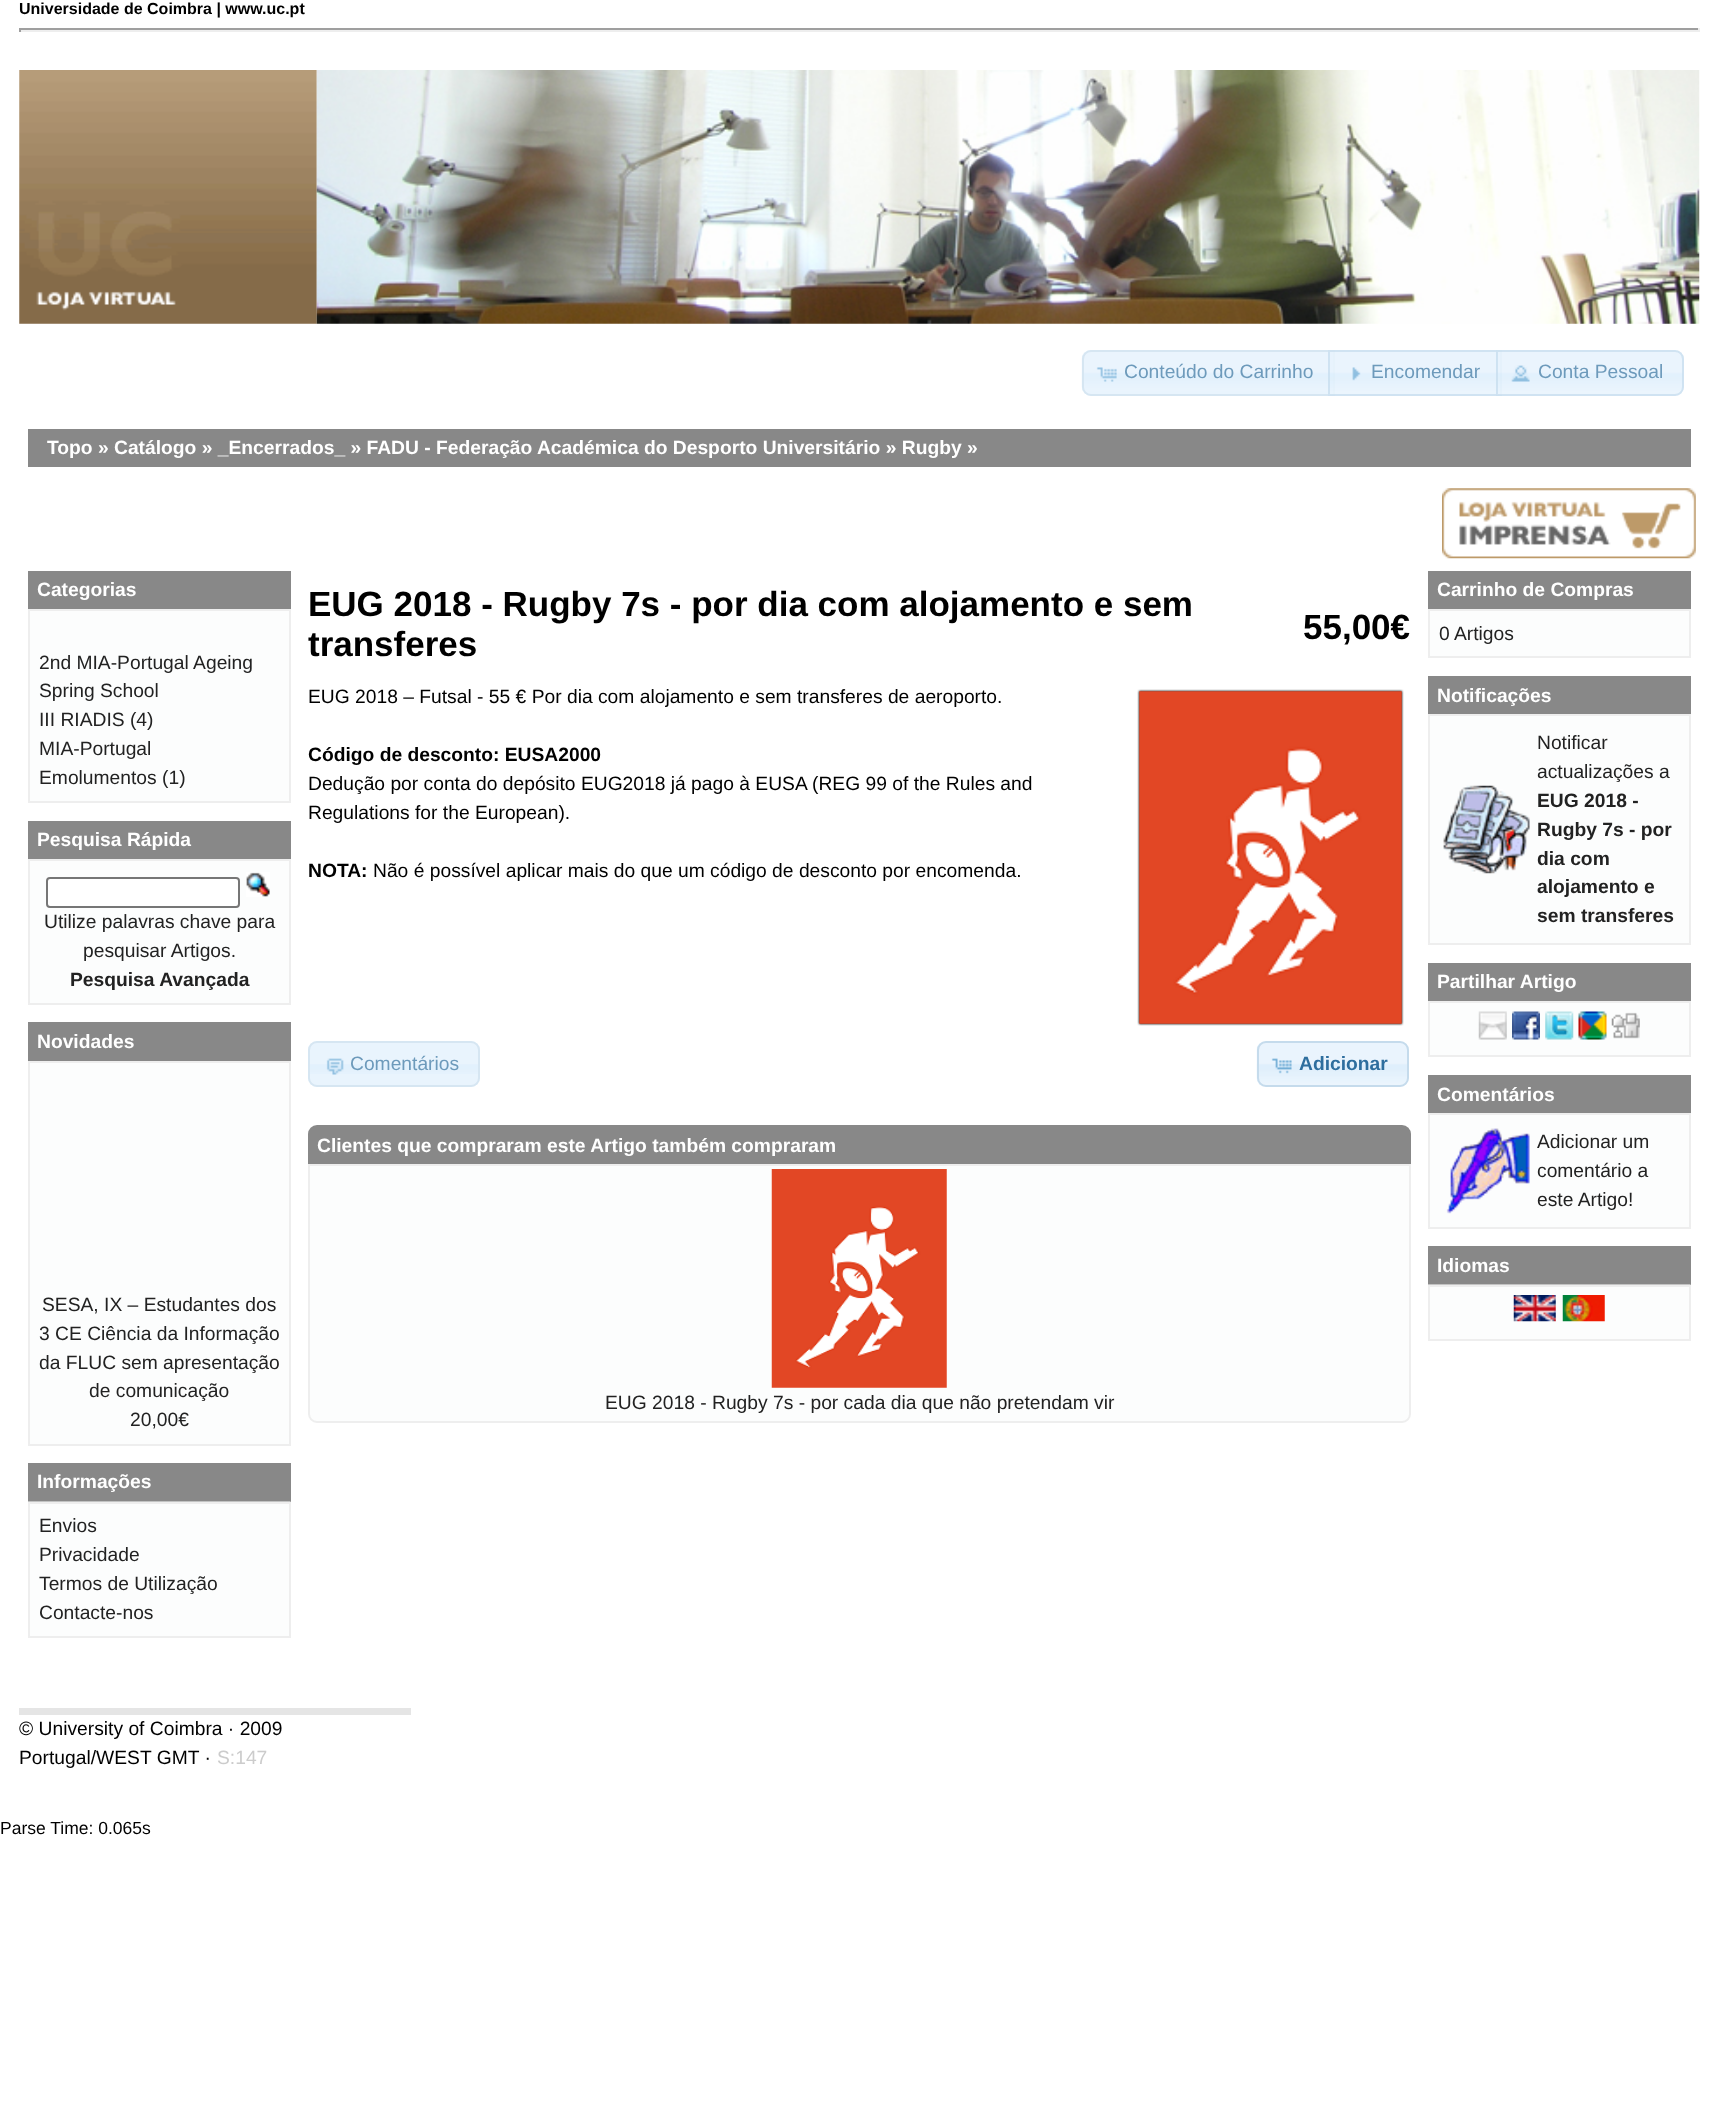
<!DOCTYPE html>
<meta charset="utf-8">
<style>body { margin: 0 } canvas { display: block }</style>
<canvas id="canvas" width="1718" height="2127"></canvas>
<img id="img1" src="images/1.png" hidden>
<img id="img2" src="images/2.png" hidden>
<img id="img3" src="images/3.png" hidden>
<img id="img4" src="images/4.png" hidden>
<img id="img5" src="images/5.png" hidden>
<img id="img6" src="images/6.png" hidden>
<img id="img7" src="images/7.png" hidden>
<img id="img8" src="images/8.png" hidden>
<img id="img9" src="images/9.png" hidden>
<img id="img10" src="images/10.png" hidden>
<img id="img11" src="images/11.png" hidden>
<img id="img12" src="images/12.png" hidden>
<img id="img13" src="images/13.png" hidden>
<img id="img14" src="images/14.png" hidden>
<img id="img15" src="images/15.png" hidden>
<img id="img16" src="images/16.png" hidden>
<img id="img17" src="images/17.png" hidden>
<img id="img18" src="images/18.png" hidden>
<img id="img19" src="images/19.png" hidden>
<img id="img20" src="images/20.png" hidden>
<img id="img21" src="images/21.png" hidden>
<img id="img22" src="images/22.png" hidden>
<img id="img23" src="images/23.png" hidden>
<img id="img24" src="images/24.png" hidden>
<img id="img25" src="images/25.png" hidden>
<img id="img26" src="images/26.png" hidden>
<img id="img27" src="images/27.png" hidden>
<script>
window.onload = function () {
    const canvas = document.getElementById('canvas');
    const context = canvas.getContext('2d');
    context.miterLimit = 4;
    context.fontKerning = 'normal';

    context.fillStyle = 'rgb(255, 255, 255)';
    context.fillRect(0, 0, 1718, 2127);
    context.fillStyle = 'rgb(159, 159, 159)';
    context.fillRect(19, 28, 1680, 2);
    context.fillStyle = 'rgb(238, 238, 238)';
    context.fillRect(1698, 28, 2, 4);
    context.fillRect(19, 30, 1680, 2);
    context.fillStyle = 'rgb(159, 159, 159)';
    context.fillRect(19, 28, 2, 4);
    context.drawImage(document.getElementById('img1'), 19, 70, 298, 254);
    context.drawImage(document.getElementById('img2'), 316, 70, 1384, 254);
    context.fillStyle = 'rgb(233, 244, 253)';
    context.beginPath();
    context.roundRect(1082, 350, 253, 46, [9, 0, 0, 9]);
    context.fill();
    context.drawImage(document.getElementById('img3'), 1081, 350, 252, 41);
    context.beginPath();
    context.roundRect(1083, 351, 251, 44, [8, 0, 0, 8]);
    context.strokeStyle = 'rgb(214, 230, 242)';
    context.lineWidth = 2;
    context.stroke();
    context.drawImage(document.getElementById('img4'), 1096, 367, 21, 15);
    context.fillStyle = 'rgba(223, 239, 252, 0.7)';
    context.fillRect(1328, 350, 174, 46);
    context.drawImage(document.getElementById('img5'), 1328, 350, 174, 46);
    context.strokeStyle = 'rgba(197, 219, 236, 0.7)';
    context.strokeRect(1329, 351, 172, 44);
    context.drawImage(document.getElementById('img6'), 1352, 367, 9, 14);
    context.beginPath();
    context.roundRect(1496, 350, 188, 46, [0, 9, 9, 0]);
    context.fill();
    context.drawImage(document.getElementById('img7'), 1496, 350, 187, 45);
    context.beginPath();
    context.roundRect(1497, 351, 186, 44, [0, 8, 8, 0]);
    context.stroke();
    context.drawImage(document.getElementById('img8'), 1511, 365, 19, 17);
    context.fillStyle = 'rgb(136, 136, 136)';
    context.fillRect(28, 429, 1663, 38);
    context.drawImage(document.getElementById('img9'), 1442, 488, 254, 71);
    context.fillRect(28, 571, 263, 38);
    context.fillStyle = 'rgb(252, 253, 253)';
    context.beginPath();
    context.rect(29, 610, 261, 192);
    context.fill();
    context.strokeStyle = 'rgb(238, 238, 238)';
    context.stroke();
    context.fillStyle = 'rgb(136, 136, 136)';
    context.fillRect(28, 821, 263, 38);
    context.fillStyle = 'rgb(252, 253, 253)';
    context.beginPath();
    context.rect(29, 860, 261, 144);
    context.fill();
    context.stroke();
    context.fillStyle = 'rgb(255, 255, 255)';
    context.beginPath();
    context.roundRect(47, 878, 192, 29, 3);
    context.fill();
    context.strokeStyle = 'rgb(118, 118, 118)';
    context.stroke();
    context.drawImage(document.getElementById('img10'), 246, 872, 24, 25);
    context.fillStyle = 'rgb(136, 136, 136)';
    context.fillRect(28, 1022, 263, 39);
    context.fillStyle = 'rgb(252, 253, 253)';
    context.beginPath();
    context.rect(29, 1062, 261, 383);
    context.fill();
    context.strokeStyle = 'rgb(238, 238, 238)';
    context.stroke();
    context.fillStyle = 'rgb(136, 136, 136)';
    context.fillRect(28, 1463, 263, 39);
    context.fillStyle = 'rgb(252, 253, 253)';
    context.beginPath();
    context.rect(29, 1503, 261, 134);
    context.fill();
    context.stroke();
    context.drawImage(document.getElementById('img11'), 28, 1501, 263, 1);
    context.fillStyle = 'rgb(0, 0, 0)';
    context.filter = 'blur(1px)';
    context.beginPath();
    context.rect(1139, 691, 263, 333);
    context.fill();
    context.filter = 'none';
    context.drawImage(document.getElementById('img12'), 1139, 691, 263, 333);
    context.fillStyle = 'rgb(233, 244, 253)';
    context.beginPath();
    context.roundRect(308, 1041, 172, 46, 9);
    context.fill();
    context.drawImage(document.getElementById('img13'), 310, 1064, 168, 10);
    context.beginPath();
    context.roundRect(309, 1042, 170, 44, 8);
    context.strokeStyle = 'rgb(214, 230, 242)';
    context.stroke();
    context.drawImage(document.getElementById('img14'), 326, 1058, 18, 17);
    context.drawImage(document.getElementById('img15'), 1256, 1041, 153, 46);
    context.beginPath();
    context.roundRect(1258, 1042, 150, 44, 8);
    context.strokeStyle = 'rgb(197, 219, 236)';
    context.stroke();
    context.drawImage(document.getElementById('img16'), 1271, 1058, 21, 16);
    context.fillStyle = 'rgb(136, 136, 136)';
    context.beginPath();
    context.roundRect(308, 1125, 1103, 39, [9, 9, 0, 0]);
    context.fill();
    context.fillStyle = 'rgb(252, 253, 253)';
    context.beginPath();
    context.roundRect(309, 1165, 1101, 257, [0, 0, 8, 8]);
    context.fill();
    context.strokeStyle = 'rgb(238, 238, 238)';
    context.stroke();
    context.drawImage(document.getElementById('img17'), 771, 1169, 176, 219);
    context.fillStyle = 'rgb(136, 136, 136)';
    context.fillRect(1428, 571, 263, 38);
    context.fillStyle = 'rgb(252, 253, 253)';
    context.beginPath();
    context.rect(1429, 610, 261, 47);
    context.fill();
    context.stroke();
    context.fillStyle = 'rgb(136, 136, 136)';
    context.fillRect(1428, 676, 263, 38);
    context.fillStyle = 'rgb(252, 253, 253)';
    context.beginPath();
    context.rect(1429, 715, 261, 229);
    context.fill();
    context.stroke();
    context.drawImage(document.getElementById('img18'), 1443, 785, 87, 89);
    context.fillStyle = 'rgb(136, 136, 136)';
    context.fillRect(1428, 963, 263, 38);
    context.fillStyle = 'rgb(252, 253, 253)';
    context.beginPath();
    context.rect(1429, 1002, 261, 54);
    context.fill();
    context.stroke();
    context.drawImage(document.getElementById('img19'), 1478, 1011, 29, 29);
    context.drawImage(document.getElementById('img20'), 1512, 1011, 28, 29);
    context.drawImage(document.getElementById('img21'), 1545, 1011, 29, 29);
    context.drawImage(document.getElementById('img22'), 1578, 1011, 29, 29);
    context.drawImage(document.getElementById('img23'), 1611, 1012, 29, 27);
    context.fillStyle = 'rgb(136, 136, 136)';
    context.fillRect(1428, 1075, 263, 38);
    context.fillStyle = 'rgb(252, 253, 253)';
    context.beginPath();
    context.rect(1429, 1114, 261, 114);
    context.fill();
    context.stroke();
    context.drawImage(document.getElementById('img24'), 1446, 1128, 84, 86);
    context.fillStyle = 'rgb(136, 136, 136)';
    context.fillRect(1428, 1246, 263, 39);
    context.fillStyle = 'rgb(252, 253, 253)';
    context.beginPath();
    context.rect(1429, 1286, 261, 54);
    context.fill();
    context.stroke();
    context.drawImage(document.getElementById('img25'), 1428, 1284, 263, 1);
    context.drawImage(document.getElementById('img26'), 1513, 1295, 43, 27);
    context.drawImage(document.getElementById('img27'), 1562, 1295, 43, 27);
    context.fillStyle = 'rgb(229, 229, 229)';
    context.fillRect(19, 1708, 392, 7);
    context.font = 'bold 16px Liberation Sans';
    context.fillStyle = 'rgb(0, 0, 0)';
    context.fillText('Universidade de Coimbra | www.uc.pt', 19, 14);
    context.font = '19.25px Liberation Sans';
    context.fillStyle = 'rgb(109, 154, 187)';
    context.fillText('Conteúdo do Carrinho', 1124, 378);
    context.fillText('Encomendar', 1371, 378);
    context.fillText('Conta Pessoal', 1538, 378);
    context.font = 'bold 19.25px Liberation Sans';
    context.fillStyle = 'rgb(255, 255, 255)';
    context.fillText('Topo » Catálogo » _Encerrados_ » FADU - Federação Académica do Desporto Universitário » Rugby »', 47, 454);
    context.fillText('Categorias', 37, 596);
    context.font = '19.25px Liberation Sans';
    context.fillStyle = 'rgb(34, 34, 34)';
    context.fillText('2nd MIA-Portugal Ageing', 39, 669);
    context.fillText('Spring School', 39, 697);
    context.fillText('III RIADIS (4)', 39, 726);
    context.fillText('MIA-Portugal', 39, 755);
    context.fillText('Emolumentos (1)', 39, 784);
    context.font = 'bold 19.25px Liberation Sans';
    context.fillStyle = 'rgb(255, 255, 255)';
    context.fillText('Pesquisa Rápida', 37, 846);
    context.font = '19.25px Liberation Sans';
    context.fillStyle = 'rgb(34, 34, 34)';
    context.fillText('Utilize palavras chave para', 44, 928);
    context.fillText('pesquisar Artigos.', 83, 957);
    context.font = 'bold 19.25px Liberation Sans';
    context.fillText('Pesquisa Avançada', 70, 986);
    context.fillStyle = 'rgb(255, 255, 255)';
    context.fillText('Novidades', 37, 1048);
    context.font = '19.25px Liberation Sans';
    context.fillStyle = 'rgb(34, 34, 34)';
    context.fillText('SESA, IX – Estudantes dos', 42, 1311);
    context.fillText('3 CE Ciência da Informação', 39, 1340);
    context.fillText('da FLUC sem apresentação', 39, 1369);
    context.fillText('de comunicação', 89, 1397);
    context.fillText('20,00€', 130, 1426);
    context.font = 'bold 19.25px Liberation Sans';
    context.fillStyle = 'rgb(255, 255, 255)';
    context.fillText('Informações', 37, 1488);
    context.font = '19.25px Liberation Sans';
    context.fillStyle = 'rgb(34, 34, 34)';
    context.fillText('Envios', 39, 1532);
    context.fillText('Privacidade', 39, 1561);
    context.fillText('Termos de Utilização', 39, 1590);
    context.fillText('Contacte-nos', 39, 1619);
    context.font = 'bold 35px Liberation Sans';
    context.fillStyle = 'rgb(0, 0, 0)';
    context.fillText('EUG 2018 - Rugby 7s - por dia com alojamento e sem', 308, 616);
    context.fillText('transferes', 308, 656);
    context.fillText('55,00€', 1303, 639);
    context.font = '19.25px Liberation Sans';
    context.fillText('EUG 2018 – Futsal - 55 € Por dia com alojamento e sem transferes de aeroporto.', 308, 703);
    context.font = 'bold 19.25px Liberation Sans';
    context.fillText('Código de desconto: EUSA2000', 308, 761);
    context.font = '19.25px Liberation Sans';
    context.fillText('Dedução por conta do depósito EUG2018 já pago à EUSA (REG 99 of the Rules and', 308, 790);
    context.fillText('Regulations for the European).', 308, 819);
    context.font = 'bold 19.25px Liberation Sans';
    context.fillText('NOTA:', 308, 877);
    context.font = '19.25px Liberation Sans';
    context.fillText('Não é possível aplicar mais do que um código de desconto por encomenda.', 373, 877);
    context.fillStyle = 'rgb(109, 154, 187)';
    context.fillText('Comentários', 350, 1070);
    context.font = 'bold 19.25px Liberation Sans';
    context.fillStyle = 'rgb(46, 110, 158)';
    context.fillText('Adicionar', 1299, 1070);
    context.fillStyle = 'rgb(255, 255, 255)';
    context.fillText('Clientes que compraram este Artigo também compraram', 317, 1152);
    context.font = '19.25px Liberation Sans';
    context.fillStyle = 'rgb(34, 34, 34)';
    context.fillText('EUG 2018 - Rugby 7s - por cada dia que não pretendam vir', 605, 1409);
    context.font = 'bold 19.25px Liberation Sans';
    context.fillStyle = 'rgb(255, 255, 255)';
    context.fillText('Carrinho de Compras', 1437, 596);
    context.font = '19.25px Liberation Sans';
    context.fillStyle = 'rgb(34, 34, 34)';
    context.fillText('0 Artigos', 1439, 640);
    context.font = 'bold 19.25px Liberation Sans';
    context.fillStyle = 'rgb(255, 255, 255)';
    context.fillText('Notificações', 1437, 702);
    context.font = '19.25px Liberation Sans';
    context.fillStyle = 'rgb(34, 34, 34)';
    context.fillText('Notificar', 1537, 749);
    context.fillText('actualizações a', 1537, 778);
    context.font = 'bold 19.25px Liberation Sans';
    context.fillText('EUG 2018 -', 1537, 807);
    context.fillText('Rugby 7s - por', 1537, 836);
    context.fillText('dia com', 1537, 865);
    context.fillText('alojamento e', 1537, 893);
    context.fillText('sem transferes', 1537, 922);
    context.fillStyle = 'rgb(255, 255, 255)';
    context.fillText('Partilhar Artigo', 1437, 988);
    context.fillText('Comentários', 1437, 1101);
    context.font = '19.25px Liberation Sans';
    context.fillStyle = 'rgb(34, 34, 34)';
    context.fillText('Adicionar um', 1537, 1148);
    context.fillText('comentário a', 1537, 1177);
    context.fillText('este Artigo!', 1537, 1206);
    context.font = 'bold 19.25px Liberation Sans';
    context.fillStyle = 'rgb(255, 255, 255)';
    context.fillText('Idiomas', 1437, 1272);
    context.font = '19.25px Liberation Sans';
    context.fillStyle = 'rgb(0, 0, 0)';
    context.fillText('© University of Coimbra · 2009', 19, 1735);
    context.fillText('Portugal/WEST GMT ·', 19, 1764);
    context.fillStyle = 'rgb(204, 204, 204)';
    context.fillText('S:147', 217, 1764);
    context.font = '17.5px Liberation Sans';
    context.fillStyle = 'rgb(0, 0, 0)';
    context.fillText('Parse Time: 0.065s', 0, 1834);
};
</script>
